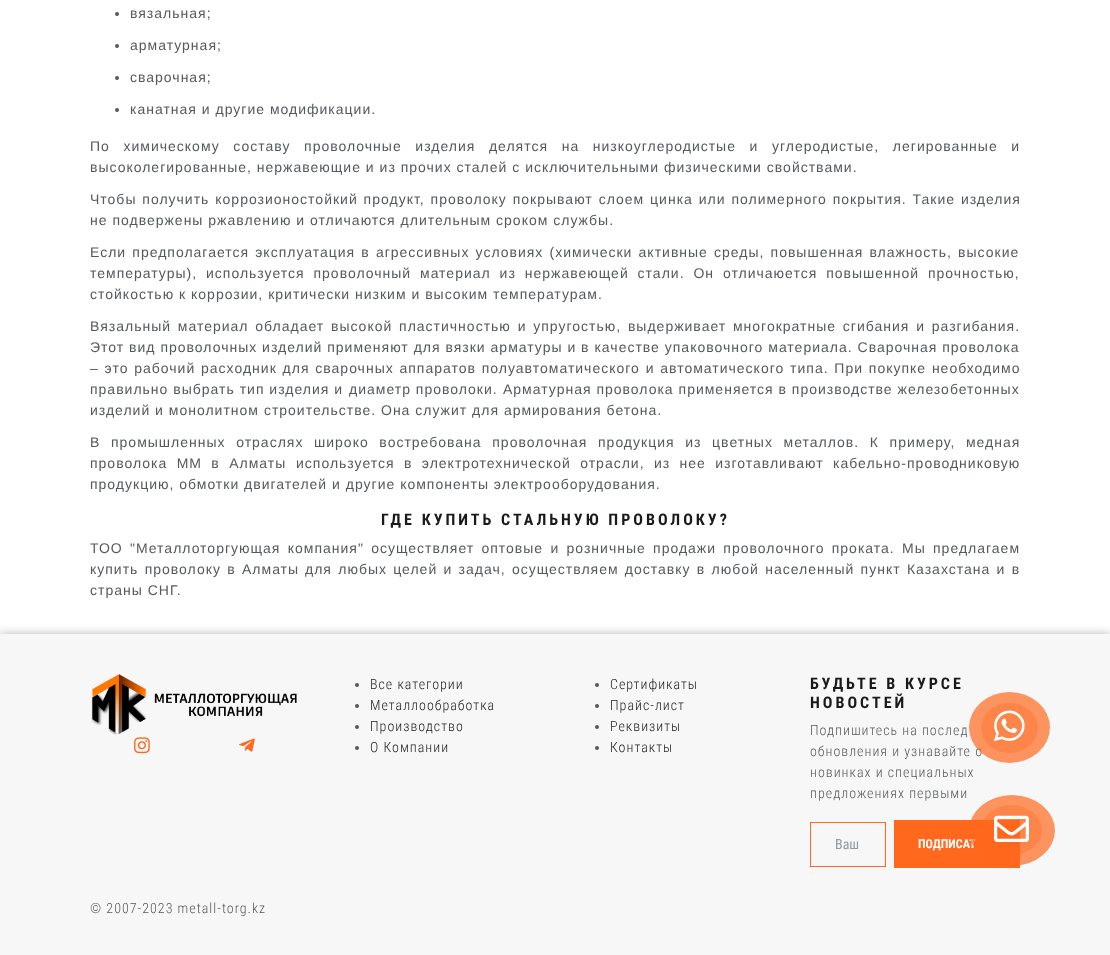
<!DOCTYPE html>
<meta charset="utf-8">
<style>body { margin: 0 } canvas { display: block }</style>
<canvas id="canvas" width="1110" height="955"></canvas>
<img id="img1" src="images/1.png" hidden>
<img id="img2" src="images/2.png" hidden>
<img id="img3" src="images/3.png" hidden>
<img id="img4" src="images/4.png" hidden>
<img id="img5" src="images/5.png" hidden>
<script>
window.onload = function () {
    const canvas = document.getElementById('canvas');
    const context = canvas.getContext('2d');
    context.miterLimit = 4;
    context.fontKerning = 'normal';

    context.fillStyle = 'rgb(255, 255, 255)';
    context.fillRect(0, 0, 1110, 955);
    context.fillStyle = 'rgb(85, 89, 92)';
    context.beginPath();
    context.arc(117, 14, 2, 0, 2 * Math.PI);
    context.fill();
    context.beginPath();
    context.arc(117, 46, 2, 0, 2 * Math.PI);
    context.fill();
    context.beginPath();
    context.arc(117, 78, 2, 0, 2 * Math.PI);
    context.fill();
    context.beginPath();
    context.arc(117, 110, 2, 0, 2 * Math.PI);
    context.fill();
    context.fillStyle = 'rgba(0, 0, 0, 0.3)';
    context.filter = 'blur(5px)';
    context.beginPath();
    context.rect(0, 634, 1110, 321);
    context.fill();
    context.filter = 'none';
    context.fillStyle = 'rgb(247, 247, 247)';
    context.fillRect(0, 634, 1110, 321);
    context.drawImage(document.getElementById('img1'), 91, 674, 206, 61);
    context.drawImage(document.getElementById('img2'), 134, 737, 16, 17);
    context.drawImage(document.getElementById('img3'), 239, 738, 16, 14);
    context.fillStyle = 'rgb(85, 89, 92)';
    context.beginPath();
    context.arc(357, 685, 2, 0, 2 * Math.PI);
    context.fill();
    context.beginPath();
    context.arc(357, 706, 2, 0, 2 * Math.PI);
    context.fill();
    context.beginPath();
    context.arc(357, 727, 2, 0, 2 * Math.PI);
    context.fill();
    context.beginPath();
    context.arc(357, 748, 2, 0, 2 * Math.PI);
    context.fill();
    context.beginPath();
    context.arc(597, 685, 2, 0, 2 * Math.PI);
    context.fill();
    context.beginPath();
    context.arc(597, 706, 2, 0, 2 * Math.PI);
    context.fill();
    context.beginPath();
    context.arc(597, 727, 2, 0, 2 * Math.PI);
    context.fill();
    context.beginPath();
    context.arc(597, 748, 2, 0, 2 * Math.PI);
    context.fill();
    context.strokeStyle = 'rgb(255, 104, 29)';
    context.strokeRect(810.5, 822.5, 75, 44);
    context.fillStyle = 'rgb(255, 104, 29)';
    context.fillRect(894, 820, 126, 48);
    context.letterSpacing = '1px';
    context.font = '14px Liberation Sans';
    context.fillStyle = 'rgb(85, 89, 92)';
    context.fillText('вязальная;', 130, 18);
    context.fillText('арматурная;', 130, 50);
    context.fillText('сварочная;', 130, 82);
    context.fillText('канатная и другие модификации.', 130, 114);
    context.wordSpacing = '8.75px';
    context.fillText('По химическому составу проволочные изделия делятся на низкоуглеродистые и углеродистые, легированные и', 90, 151);
    context.wordSpacing = '0px';
    context.fillText('высоколегированные, нержавеющие и из прочих сталей с исключительными физическими свойствами.', 90, 172);
    context.wordSpacing = '1px';
    context.fillText('Чтобы получить коррозионостойкий продукт, проволоку покрывают слоем цинка или полимерного покрытия. Такие изделия', 90, 204);
    context.wordSpacing = '0px';
    context.fillText('не подвержены ржавлению и отличаются длительным сроком службы.', 90, 225);
    context.wordSpacing = '1.25px';
    context.fillText('Если предполагается эксплуатация в агрессивных условиях (химически активные среды, повышенная влажность, высокие', 90, 257);
    context.wordSpacing = '4px';
    context.fillText('температуры), используется проволочный материал из нержавеющей стали. Он отличаюется повышенной прочностью,', 90, 278);
    context.wordSpacing = '0px';
    context.fillText('стойкостью к коррозии, критически низким и высоким температурам.', 90, 299);
    context.wordSpacing = '1.9px';
    context.fillText('Вязальный материал обладает высокой пластичностью и упругостью, выдерживает многократные сгибания и разгибания.', 90, 331);
    context.wordSpacing = '0px';
    context.fillText('Этот вид проволочных изделий применяют для вязки арматуры и в качестве упаковочного материала. Сварочная проволока', 90, 352);
    context.wordSpacing = '0.9px';
    context.fillText('– это рабочий расходник для сварочных аппаратов полуавтоматического и автоматического типа. При покупке необходимо', 90, 373);
    context.wordSpacing = '0px';
    context.fillText('правильно выбрать тип изделия и', 90, 394);
    context.fillText('диаметр проволоки.', 349, 394);
    context.fillText('Арматурная проволока применяется в производстве железобетонных', 503, 394);
    context.fillText('изделий и монолитном строительстве. Она служит для армирования бетона.', 90, 415);
    context.wordSpacing = '5.75px';
    context.fillText('В промышленных отраслях широко востребована проволочная продукция из цветных металлов. К примеру, медная', 90, 447);
    context.wordSpacing = '4.5px';
    context.fillText('проволока ММ в Алматы', 90, 468);
    context.fillText('используется в электротехнической отрасли, из нее изготавливают кабельно-проводниковую', 296, 468);
    context.wordSpacing = '0px';
    context.fillText('продукцию, обмотки двигателей и другие компоненты электрооборудования.', 90, 489);
    context.letterSpacing = '3px';
    context.font = 'bold 16px Roboto Condensed';
    context.fillStyle = 'rgb(26, 26, 26)';
    context.fillText('ГДЕ КУПИТЬ СТАЛЬНУЮ ПРОВОЛОКУ?', 381, 525);
    context.letterSpacing = '1px';
    context.wordSpacing = '2.4px';
    context.font = '14px Liberation Sans';
    context.fillStyle = 'rgb(85, 89, 92)';
    context.fillText('ТОО "Металлоторгующая компания" осуществляет оптовые и розничные продажи проволочного проката. Мы предлагаем', 90, 553);
    context.wordSpacing = '1.4px';
    context.fillText('купить проволоку в Алматы', 90, 574);
    context.fillText('для любых целей и задач, осуществляем доставку в любой населенный пункт Казахстана и в', 305, 574);
    context.wordSpacing = '0px';
    context.fillText('страны СНГ.', 90, 595);
    context.font = '300 14px Roboto Condensed';
    context.fillStyle = 'rgb(26, 26, 26)';
    context.fillText('Все категории', 370, 689);
    context.fillText('Металлообработка', 370, 710);
    context.fillText('Производство', 370, 731);
    context.fillText('О Компании', 370, 752);
    context.fillText('Сертификаты', 610, 689);
    context.fillText('Прайс-лист', 610, 710);
    context.fillText('Реквизиты', 610, 731);
    context.fillText('Контакты', 610, 752);
    context.letterSpacing = '3px';
    context.font = 'bold 16px Roboto Condensed';
    context.fillText('БУДЬТЕ В КУРСЕ', 810, 689);
    context.fillText('НОВОСТЕЙ', 810, 708);
    context.letterSpacing = '1px';
    context.font = '300 14px Roboto Condensed';
    context.fillStyle = 'rgb(85, 89, 92)';
    context.fillText('Подпишитесь на послед', 810, 735);
    context.fillText('обновления и узнавайте о', 810, 756);
    context.fillText('новинках и специальных', 810, 777);
    context.fillText('предложениях первыми', 810, 798);
    context.letterSpacing = '0px';
    context.font = '14px Roboto Condensed';
    context.fillStyle = 'rgb(145, 154, 161)';
    context.fillText('Ваш', 835, 849);
    context.font = 'bold 12.25px Roboto Condensed';
    context.fillStyle = 'rgb(255, 255, 255)';
    context.fillText('ПОДПИСАТ', 918, 848);
    context.letterSpacing = '1px';
    context.font = '300 14px Roboto Condensed';
    context.fillStyle = 'rgb(85, 89, 92)';
    context.fillText('© 2007-2023 metall-torg.kz', 90, 913);
    context.fillStyle = 'rgba(255, 104, 29, 0.7)';
    context.beginPath();
    context.ellipse(1009.5, 727.5, 40.5, 35.5, 0, 0, 2 * Math.PI);
    context.fill();
    context.fillStyle = 'rgba(255, 104, 29, 0.3)';
    context.beginPath();
    context.ellipse(1009.5, 728, 28.5, 25, 0, 0, 2 * Math.PI);
    context.fill();
    context.drawImage(document.getElementById('img4'), 994, 710, 31, 32);
    context.fillStyle = 'rgba(255, 104, 29, 0.7)';
    context.beginPath();
    context.ellipse(1012, 830.5, 43, 35.5, 0, 0, 2 * Math.PI);
    context.fill();
    context.fillStyle = 'rgba(255, 104, 29, 0.3)';
    context.beginPath();
    context.ellipse(1011.5, 830, 30.5, 25, 0, 0, 2 * Math.PI);
    context.fill();
    context.drawImage(document.getElementById('img5'), 994, 815, 35, 27);
};
</script>
